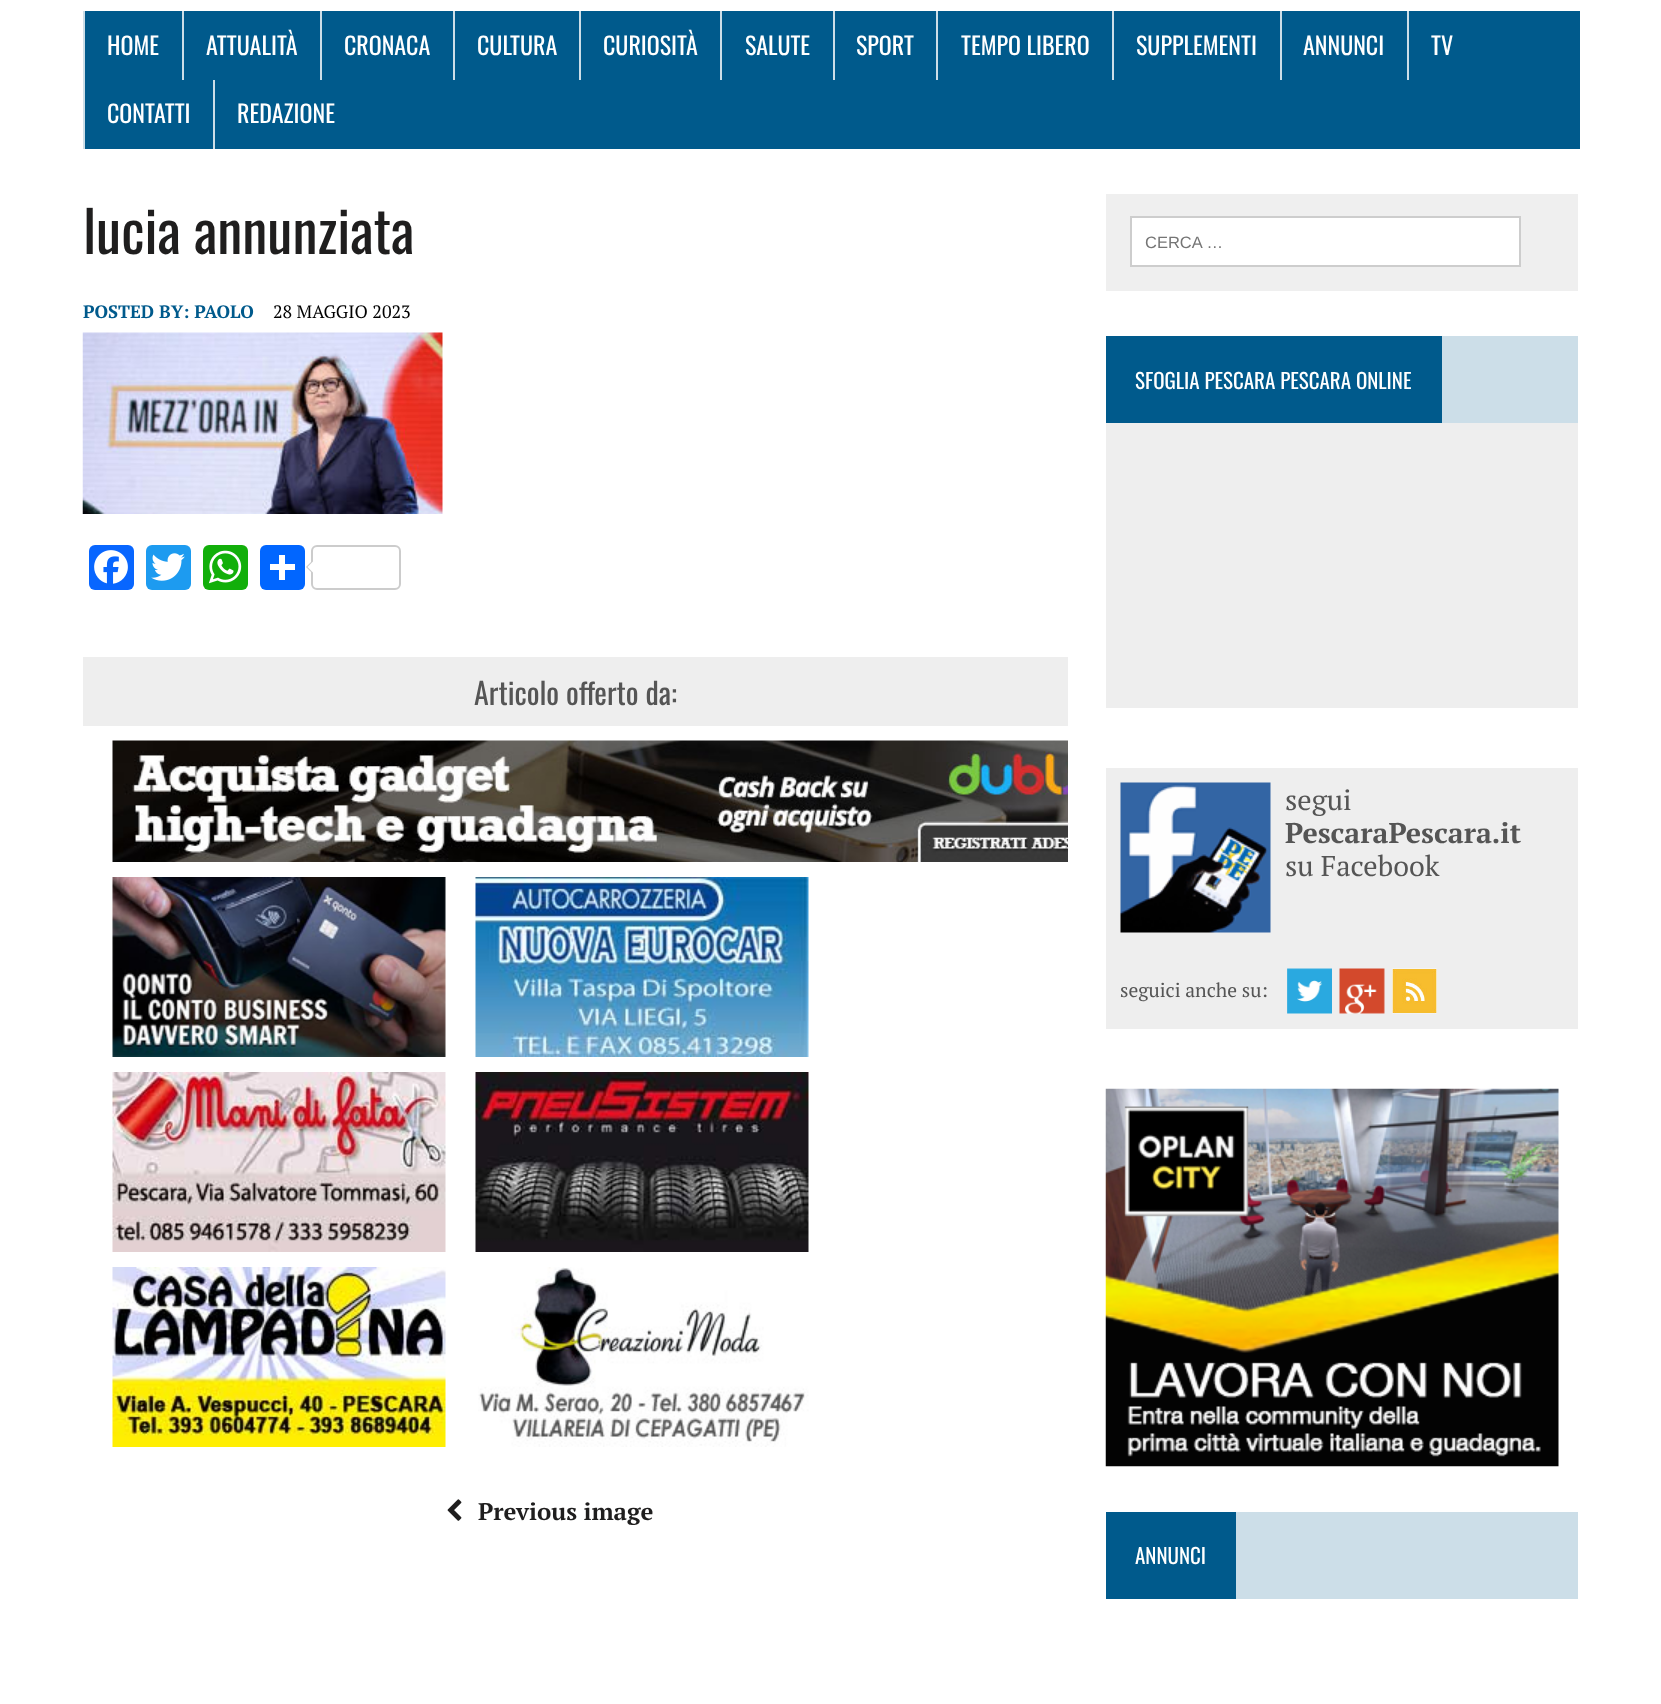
<!DOCTYPE html>
<meta charset="utf-8">
<style>body { margin: 0 } canvas { display: block }</style>
<canvas id="canvas" width="1661" height="1704"></canvas>
<img id="img1" src="images/1.png" hidden>
<img id="img2" src="images/2.png" hidden>
<img id="img3" src="images/3.png" hidden>
<img id="img4" src="images/4.png" hidden>
<img id="img5" src="images/5.png" hidden>
<img id="img6" src="images/6.png" hidden>
<img id="img7" src="images/7.png" hidden>
<img id="img8" src="images/8.png" hidden>
<img id="img9" src="images/9.png" hidden>
<img id="img10" src="images/10.png" hidden>
<img id="img11" src="images/11.png" hidden>
<img id="img12" src="images/12.png" hidden>
<img id="img13" src="images/13.png" hidden>
<img id="img14" src="images/14.png" hidden>
<img id="img15" src="images/15.png" hidden>
<img id="img16" src="images/16.png" hidden>
<img id="img17" src="images/17.png" hidden>
<script>
window.onload = function () {
    const canvas = document.getElementById('canvas');
    const context = canvas.getContext('2d');
    context.miterLimit = 4;
    context.fontKerning = 'normal';

    context.fillStyle = 'rgb(255, 255, 255)';
    context.fillRect(0, 0, 1661, 1704);
    context.fillStyle = 'rgb(0, 90, 140)';
    context.fillRect(85, 11, 1495, 138);
    context.fillStyle = 'rgb(204, 222, 232)';
    context.fillRect(83, 11, 2, 138);
    context.fillRect(182, 11, 2, 69);
    context.fillRect(320, 11, 2, 69);
    context.fillRect(453, 11, 2, 69);
    context.fillRect(579, 11, 2, 69);
    context.fillRect(720, 11, 2, 69);
    context.fillRect(833, 11, 2, 69);
    context.fillRect(936, 11, 2, 69);
    context.fillRect(1112, 11, 2, 69);
    context.fillRect(1280, 11, 2, 69);
    context.fillRect(1407, 11, 2, 69);
    context.fillRect(213, 80, 2, 69);
    context.drawImage(document.getElementById('img1'), 82, 332, 361, 182);
    context.fillStyle = 'rgb(8, 102, 255)';
    context.beginPath();
    context.roundRect(89, 545, 45, 45, 6);
    context.fill();
    context.drawImage(document.getElementById('img2'), 94, 550, 34, 34);
    context.fillStyle = 'rgb(29, 155, 240)';
    context.beginPath();
    context.roundRect(146, 545, 45, 45, 6);
    context.fill();
    context.drawImage(document.getElementById('img3'), 151, 553, 34, 28);
    context.fillStyle = 'rgb(18, 175, 10)';
    context.beginPath();
    context.roundRect(203, 545, 45, 45, 6);
    context.fill();
    context.drawImage(document.getElementById('img4'), 208, 550, 34, 34);
    context.fillStyle = 'rgb(1, 102, 255)';
    context.beginPath();
    context.roundRect(260, 545, 45, 45, 6);
    context.fill();
    context.fillStyle = 'rgb(255, 255, 255)';
    context.fillRect(279, 555, 6, 25);
    context.fillRect(270, 564, 25, 6);
    context.beginPath();
    context.roundRect(312, 546, 88, 43, 5);
    context.strokeStyle = 'rgb(204, 204, 204)';
    context.lineWidth = 2;
    context.stroke();
    context.fillStyle = 'rgb(204, 204, 204)';
    context.beginPath();
    context.moveTo(312, 561);
    context.lineTo(312, 573);
    context.lineTo(306, 567);
    context.closePath();
    context.fill();
    context.fillStyle = 'rgb(255, 255, 255)';
    context.beginPath();
    context.moveTo(313.5, 561);
    context.lineTo(313.5, 573);
    context.lineTo(307.5, 567);
    context.closePath();
    context.fill();
    context.fillStyle = 'rgb(238, 238, 238)';
    context.fillRect(83, 657, 985, 69);
    context.drawImage(document.getElementById('img5'), 112, 740, 956, 122);
    context.drawImage(document.getElementById('img6'), 112, 877, 334, 180);
    context.drawImage(document.getElementById('img7'), 475, 877, 334, 180);
    context.drawImage(document.getElementById('img8'), 112, 1072, 334, 180);
    context.drawImage(document.getElementById('img9'), 475, 1072, 334, 180);
    context.drawImage(document.getElementById('img10'), 112, 1267, 334, 180);
    context.drawImage(document.getElementById('img11'), 478, 1267, 331, 180);
    context.drawImage(document.getElementById('img12'), 447, 1499, 15, 22);
    context.fillStyle = 'rgb(239, 239, 239)';
    context.fillRect(1106, 194, 472, 97);
    context.fillStyle = 'rgb(255, 255, 255)';
    context.beginPath();
    context.rect(1131, 217, 389, 49);
    context.fill();
    context.strokeStyle = 'rgb(205, 205, 205)';
    context.stroke();
    context.fillStyle = 'rgb(204, 222, 232)';
    context.fillRect(1442, 336, 136, 87);
    context.fillStyle = 'rgb(0, 90, 140)';
    context.fillRect(1106, 336, 336, 87);
    context.fillStyle = 'rgb(238, 238, 238)';
    context.fillRect(1106, 423, 472, 285);
    context.fillRect(1106, 768, 472, 261);
    context.drawImage(document.getElementById('img13'), 1120, 782, 151, 151);
    context.drawImage(document.getElementById('img14'), 1287, 968, 45, 46);
    context.drawImage(document.getElementById('img15'), 1339, 968, 46, 46);
    context.drawImage(document.getElementById('img16'), 1392, 968, 45, 46);
    context.drawImage(document.getElementById('img17'), 1105, 1088, 454, 379);
    context.fillStyle = 'rgb(204, 222, 232)';
    context.fillRect(1236, 1512, 342, 87);
    context.fillStyle = 'rgb(0, 90, 140)';
    context.fillRect(1106, 1512, 130, 87);
    context.font = '24px Oswald';
    context.fillStyle = 'rgb(255, 255, 255)';
    context.fillText('HOME', 107, 55);
    context.fillText('ATTUALITÀ', 206, 55);
    context.fillText('CRONACA', 344, 55);
    context.fillText('CULTURA', 477, 55);
    context.fillText('CURIOSITÀ', 603, 55);
    context.fillText('SALUTE', 745, 55);
    context.fillText('SPORT', 856, 55);
    context.fillText('TEMPO LIBERO', 961, 55);
    context.fillText('SUPPLEMENTI', 1136, 55);
    context.fillText('ANNUNCI', 1303, 55);
    context.fillText('TV', 1431, 55);
    context.fillText('CONTATTI', 107, 123);
    context.fillText('REDAZIONE', 237, 123);
    context.font = '57px Oswald';
    context.fillStyle = 'rgb(31, 30, 30)';
    context.fillText('lucia annunziata', 83, 254);
    context.font = 'bold 18px PT Serif';
    context.fillStyle = 'rgb(0, 90, 140)';
    context.fillText('POSTED BY: PAOLO', 83, 318);
    context.font = '18px PT Serif';
    context.fillStyle = 'rgb(0, 0, 0)';
    context.fillText('28 MAGGIO 2023', 273, 318);
    context.font = '30px Oswald';
    context.fillStyle = 'rgb(85, 85, 85)';
    context.fillText('Articolo offerto da:', 474, 705);
    context.font = 'bold 24px PT Serif';
    context.fillStyle = 'rgb(31, 30, 30)';
    context.fillText('Previous image', 478, 1520);
    context.font = '16.5px Liberation Sans';
    context.fillStyle = 'rgb(117, 117, 117)';
    context.fillText('CERCA …', 1145, 248);
    context.font = '21px Oswald';
    context.fillStyle = 'rgb(255, 255, 255)';
    context.fillText('SFOGLIA PESCARA PESCARA ONLINE', 1135, 389);
    context.font = '28.5px PT Serif';
    context.fillStyle = 'rgb(85, 85, 85)';
    context.fillText('segui', 1285, 810);
    context.font = 'bold 28.5px PT Serif';
    context.fillText('PescaraPescara.it', 1285, 843);
    context.font = '28.5px PT Serif';
    context.fillText('su Facebook', 1285, 876);
    context.font = '19.5px PT Serif';
    context.fillText('seguici anche su:', 1120, 997);
    context.font = '21px Oswald';
    context.fillStyle = 'rgb(255, 255, 255)';
    context.fillText('ANNUNCI', 1135, 1564);
};
</script>
